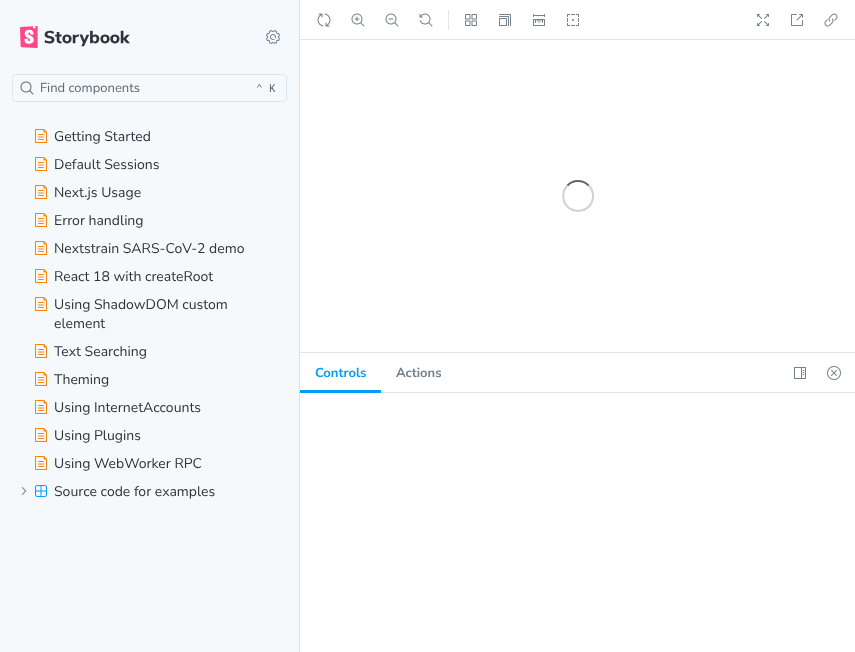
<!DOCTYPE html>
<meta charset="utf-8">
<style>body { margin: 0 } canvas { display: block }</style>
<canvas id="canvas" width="855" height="652"></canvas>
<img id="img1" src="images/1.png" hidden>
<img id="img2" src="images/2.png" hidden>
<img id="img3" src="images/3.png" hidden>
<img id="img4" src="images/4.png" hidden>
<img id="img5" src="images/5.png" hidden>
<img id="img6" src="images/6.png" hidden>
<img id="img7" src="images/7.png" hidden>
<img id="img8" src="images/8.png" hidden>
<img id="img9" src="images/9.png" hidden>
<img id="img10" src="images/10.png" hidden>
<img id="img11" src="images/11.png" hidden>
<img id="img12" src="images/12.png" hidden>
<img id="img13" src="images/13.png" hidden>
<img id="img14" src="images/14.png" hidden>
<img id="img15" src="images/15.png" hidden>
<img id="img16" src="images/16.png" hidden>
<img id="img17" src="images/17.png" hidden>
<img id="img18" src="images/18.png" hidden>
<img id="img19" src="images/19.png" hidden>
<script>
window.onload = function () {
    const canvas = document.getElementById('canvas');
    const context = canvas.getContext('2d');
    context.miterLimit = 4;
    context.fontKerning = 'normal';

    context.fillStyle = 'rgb(246, 249, 252)';
    context.fillRect(0, 0, 855, 652);
    context.fillStyle = 'rgb(215, 224, 231)';
    context.fillRect(299, 0, 1, 652);
    context.drawImage(document.getElementById('img1'), 20, 26, 110, 22);
    context.drawImage(document.getElementById('img2'), 266, 30, 14, 14);
    context.beginPath();
    context.roundRect(12.5, 74.5, 274, 27, 3.5);
    context.strokeStyle = 'rgb(217, 232, 242)';
    context.stroke();
    context.drawImage(document.getElementById('img3'), 20, 81, 14, 14);
    context.drawImage(document.getElementById('img4'), 35, 129, 12, 14);
    context.drawImage(document.getElementById('img4'), 35, 157, 12, 14);
    context.drawImage(document.getElementById('img4'), 35, 185, 12, 14);
    context.drawImage(document.getElementById('img4'), 35, 213, 12, 14);
    context.drawImage(document.getElementById('img4'), 35, 241, 12, 14);
    context.drawImage(document.getElementById('img4'), 35, 269, 12, 14);
    context.drawImage(document.getElementById('img4'), 35, 297, 12, 14);
    context.drawImage(document.getElementById('img4'), 35, 344, 12, 14);
    context.drawImage(document.getElementById('img4'), 35, 372, 12, 14);
    context.drawImage(document.getElementById('img4'), 35, 400, 12, 14);
    context.drawImage(document.getElementById('img4'), 35, 428, 12, 14);
    context.drawImage(document.getElementById('img4'), 35, 456, 12, 14);
    context.drawImage(document.getElementById('img5'), 21, 487, 6, 8);
    context.drawImage(document.getElementById('img6'), 35, 485, 12, 12);
    context.fillStyle = 'rgb(255, 255, 255)';
    context.fillRect(300, 0, 555, 352);
    context.fillStyle = 'rgb(222, 230, 234)';
    context.fillRect(300, 39, 555, 1);
    context.drawImage(document.getElementById('img7'), 317, 13, 14, 14);
    context.drawImage(document.getElementById('img8'), 351, 13, 14, 14);
    context.drawImage(document.getElementById('img9'), 385, 13, 14, 14);
    context.drawImage(document.getElementById('img10'), 419, 13, 14, 14);
    context.fillRect(448, 10, 1, 20);
    context.drawImage(document.getElementById('img11'), 465, 14, 12, 12);
    context.drawImage(document.getElementById('img12'), 499, 14, 12, 12);
    context.drawImage(document.getElementById('img13'), 533, 14, 12, 12);
    context.drawImage(document.getElementById('img14'), 567, 14, 12, 12);
    context.drawImage(document.getElementById('img15'), 757, 14, 12, 12);
    context.drawImage(document.getElementById('img16'), 791, 14, 12, 12);
    context.drawImage(document.getElementById('img17'), 824, 13, 14, 14);
    context.beginPath();
    context.moveTo(567.5, 185.5);
    context.bezierCurveTo(573, 179.5, 583, 179.5, 588.5, 185.5);
    context.strokeStyle = 'rgb(100, 100, 100)';
    context.lineWidth = 2;
    context.stroke();
    context.beginPath();
    context.moveTo(588.5, 185.5);
    context.bezierCurveTo(591.5, 188, 593, 192, 593, 196);
    context.bezierCurveTo(593, 214, 567, 216.5, 563.5, 199);
    context.bezierCurveTo(562.5, 194, 564, 189, 567.5, 185.5);
    context.strokeStyle = 'rgba(97, 97, 97, 0.29)';
    context.stroke();
    context.fillStyle = 'rgb(255, 255, 255)';
    context.fillRect(300, 353, 555, 299);
    context.fillStyle = 'rgb(222, 230, 234)';
    context.fillRect(300, 352, 555, 1);
    context.fillRect(381, 392, 474, 1);
    context.fillStyle = 'rgb(2, 156, 253)';
    context.fillRect(300, 390, 81, 3);
    context.drawImage(document.getElementById('img18'), 794, 367, 12, 12);
    context.drawImage(document.getElementById('img19'), 827, 366, 14, 14);
    context.font = '13px Nunito Sans';
    context.fillStyle = 'rgb(92, 104, 112)';
    context.fillText('Find components', 40, 92);
    context.font = '11px DejaVu Sans Mono';
    context.fillText('⌃', 256, 92);
    context.font = '11px Roboto Mono';
    context.fillText('K', 269, 92);
    context.font = '14px Nunito Sans';
    context.fillStyle = 'rgb(46, 52, 56)';
    context.fillText('Getting Started', 54, 141);
    context.fillText('Default Sessions', 54, 169);
    context.fillText('Next.js Usage', 54, 197);
    context.fillText('Error handling', 54, 225);
    context.fillText('Nextstrain SARS-CoV-2 demo', 54, 253);
    context.fillText('React 18 with createRoot', 54, 281);
    context.fillText('Using ShadowDOM custom', 54, 309);
    context.fillText('element', 54, 328);
    context.fillText('Text Searching', 54, 356);
    context.fillText('Theming', 54, 384);
    context.fillText('Using InternetAccounts', 54, 412);
    context.fillText('Using Plugins', 54, 440);
    context.fillText('Using WebWorker RPC', 54, 468);
    context.fillText('Source code for examples', 54, 496);
    context.font = 'bold 13px Nunito Sans';
    context.fillStyle = 'rgb(2, 156, 253)';
    context.fillText('Controls', 315, 377);
    context.fillStyle = 'rgb(115, 130, 140)';
    context.fillText('Actions', 396, 377);
};
</script>
